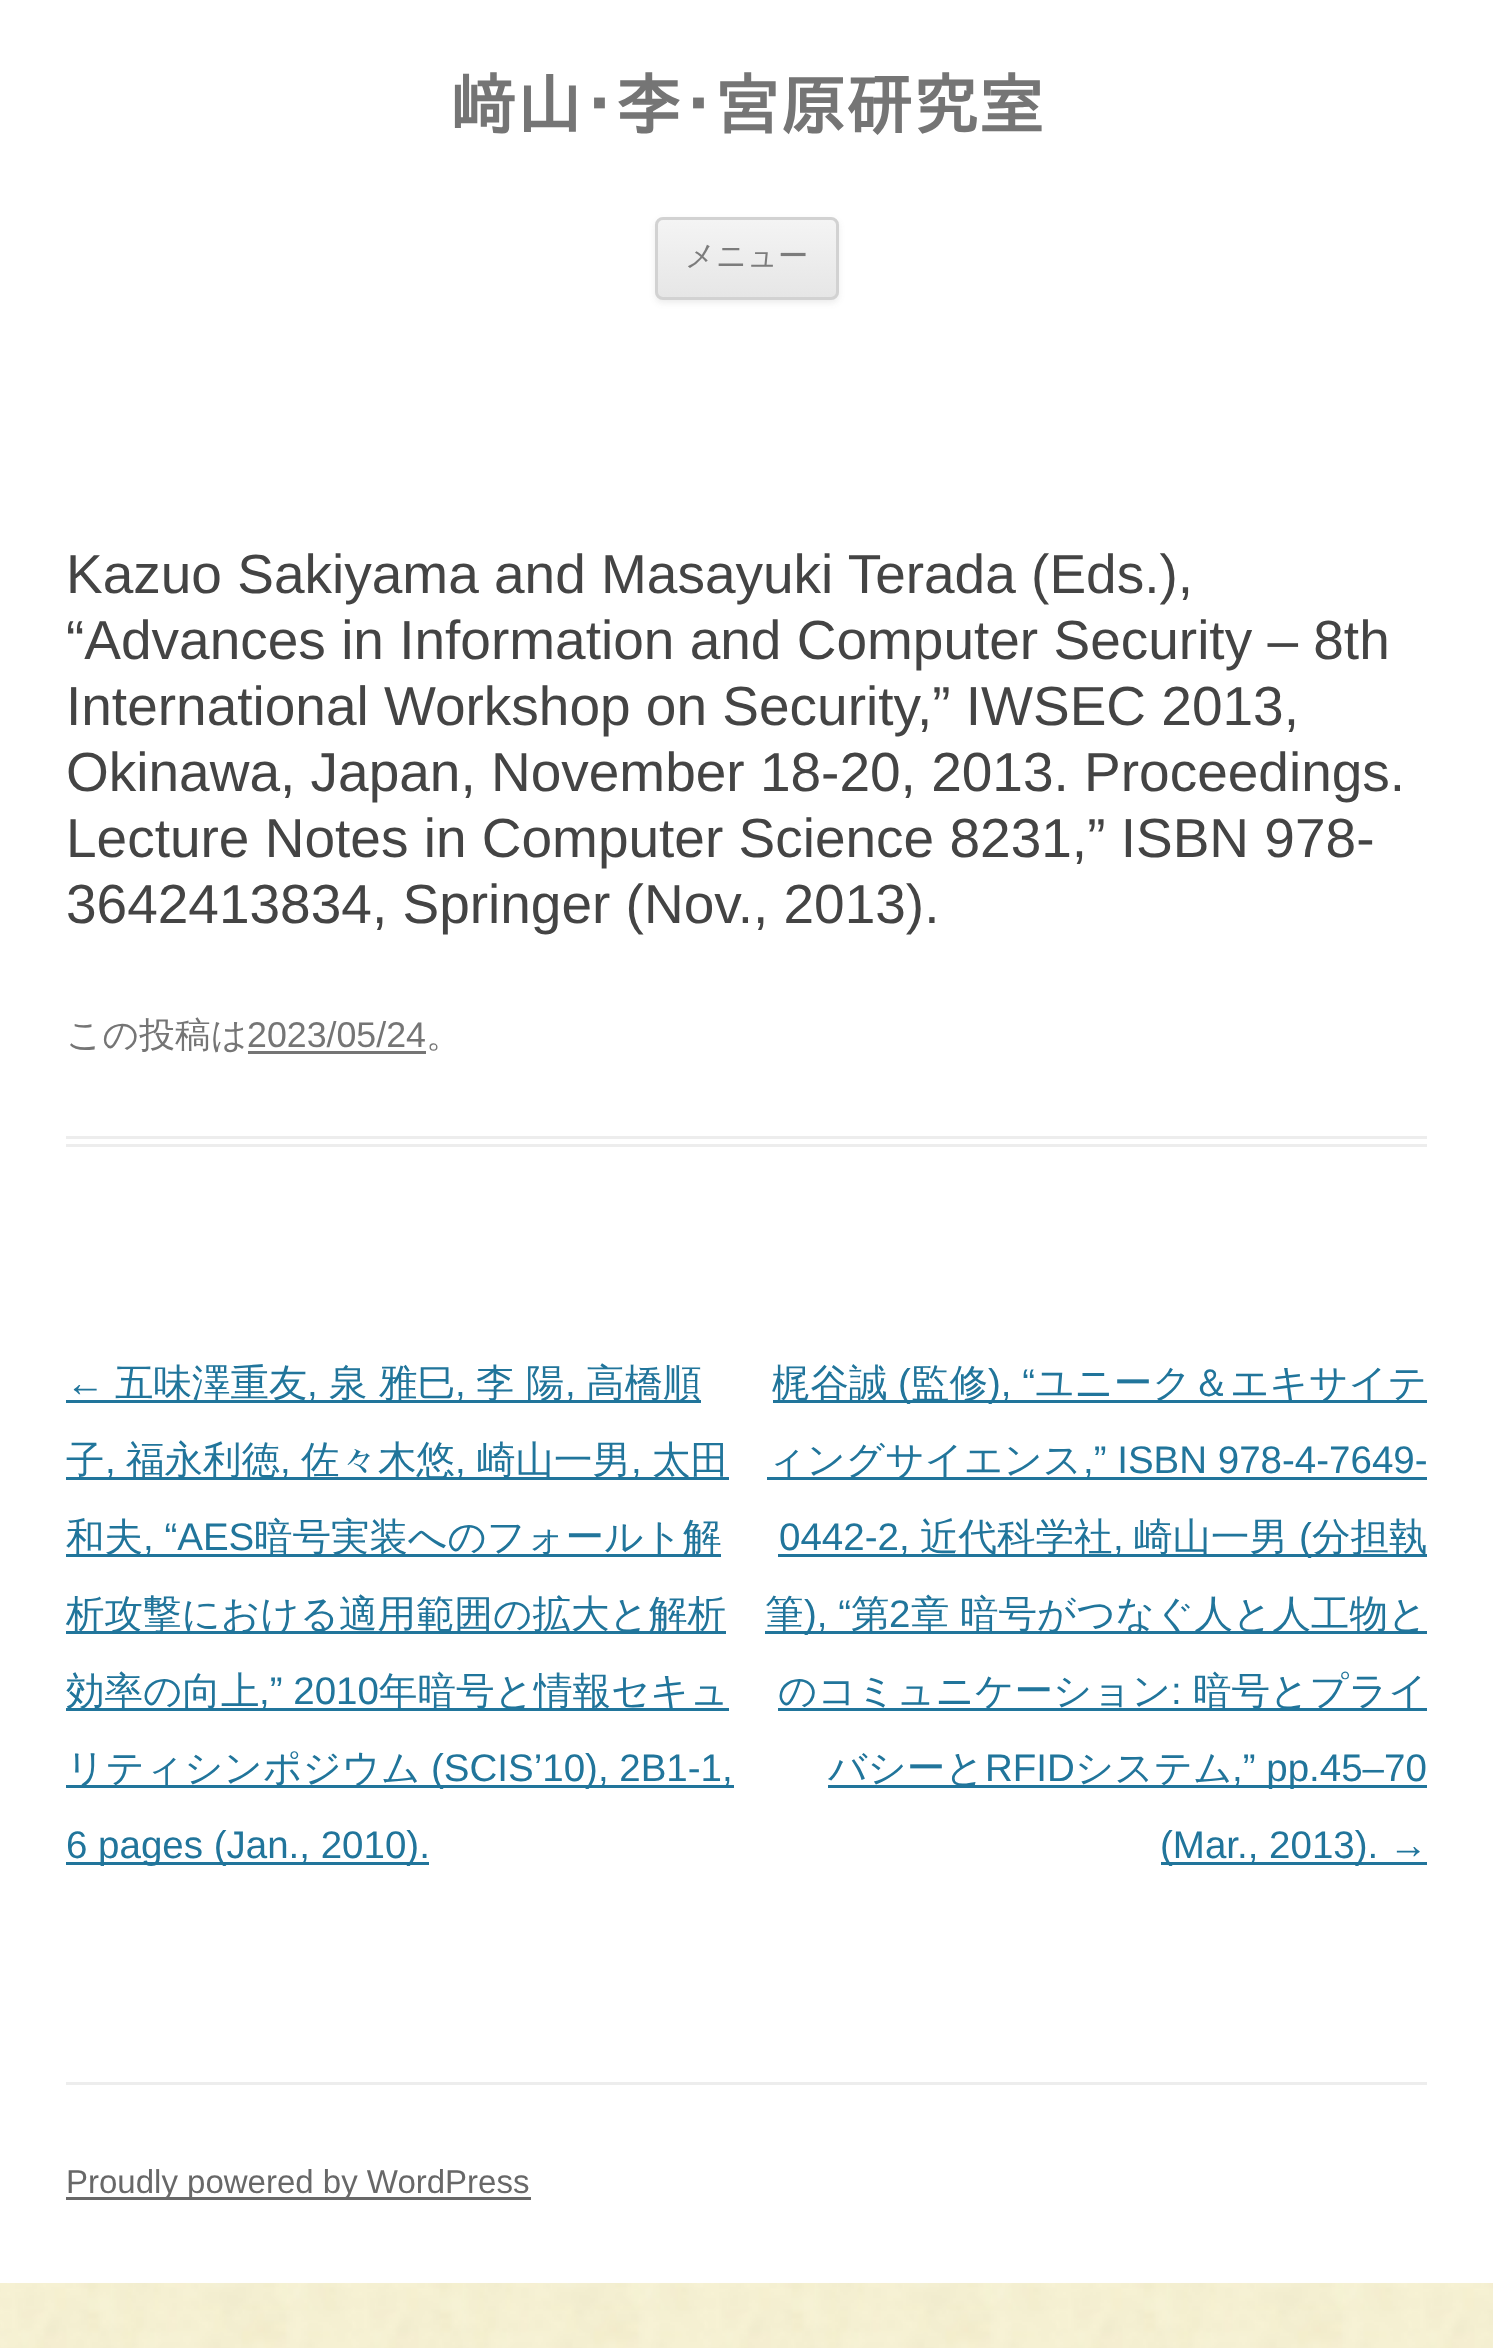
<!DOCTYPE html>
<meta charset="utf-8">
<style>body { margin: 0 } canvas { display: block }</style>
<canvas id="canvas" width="1493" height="2348"></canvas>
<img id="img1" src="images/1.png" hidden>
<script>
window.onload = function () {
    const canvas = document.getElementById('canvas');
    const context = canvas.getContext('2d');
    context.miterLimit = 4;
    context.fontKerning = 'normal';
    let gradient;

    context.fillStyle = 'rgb(255, 255, 255)';
    context.fillRect(0, 0, 1493, 2348);
    context.drawImage(document.getElementById('img1'), 0, 2283, 1493, 65);
    context.fillStyle = 'rgba(64, 64, 64, 0.1)';
    context.filter = 'blur(3px)';
    context.beginPath();
    context.roundRect(655, 220, 184, 83, 8);
    context.fill();
    context.filter = 'none';
    context.save();
    context.beginPath();
    context.roundRect(655, 217, 184, 83, 8);
    context.clip();
    gradient = context.createLinearGradient(747, 220, 747, 297);
    gradient.addColorStop(0, 'rgb(244, 244, 244)');
    gradient.addColorStop(1, 'rgb(230, 230, 230)');
    context.fillStyle = gradient;
    context.fillRect(655, 220, 184, 77);
    context.restore();
    context.beginPath();
    context.roundRect(656.5, 218.5, 181, 80, 6.5);
    context.strokeStyle = 'rgb(210, 210, 210)';
    context.lineWidth = 3;
    context.stroke();
    context.fillStyle = 'rgb(237, 237, 237)';
    context.fillRect(66, 1136, 1361, 3);
    context.fillRect(66, 1144, 1361, 3);
    context.fillStyle = 'rgb(117, 117, 117)';
    context.fillRect(248, 1051, 178, 3);
    context.fillStyle = 'rgb(33, 117, 155)';
    context.fillRect(66, 1400, 635, 3);
    context.fillRect(66, 1477, 663, 3);
    context.fillRect(66, 1554, 655, 3);
    context.fillRect(66, 1631, 660, 3);
    context.fillRect(66, 1708, 663, 3);
    context.fillRect(66, 1785, 668, 3);
    context.fillRect(66, 1862, 363, 3);
    context.fillRect(773, 1400, 654, 3);
    context.fillRect(767, 1477, 660, 3);
    context.fillRect(778, 1554, 649, 3);
    context.fillRect(765, 1631, 662, 3);
    context.fillRect(778, 1708, 649, 3);
    context.fillRect(828, 1785, 599, 3);
    context.fillRect(1161, 1862, 266, 3);
    context.fillStyle = 'rgb(237, 237, 237)';
    context.fillRect(66, 2082, 1361, 3);
    context.fillStyle = 'rgb(104, 104, 104)';
    context.fillRect(66, 2197, 465, 3);
    context.font = 'bold 66px IPAPGothic';
    context.fillStyle = 'rgb(117, 117, 117)';
    context.fillText('﨑山・李・宮原研究室', 450, 129);
    context.font = '500 30.25px WenQuanYi Zen Hei';
    context.fillStyle = 'rgb(124, 124, 124)';
    context.fillText('メニュー', 685, 266);
    context.font = '55px Liberation Sans';
    context.fillStyle = 'rgb(68, 68, 68)';
    context.fillText('Kazuo Sakiyama and Masayuki Terada (Eds.),', 66, 593);
    context.fillText('“Advances in Information and Computer Security – 8th', 66, 659);
    context.fillText('International Workshop on Security,” IWSEC 2013,', 66, 725);
    context.fillText('Okinawa, Japan, November 18-20, 2013. Proceedings.', 66, 791);
    context.fillText('Lecture Notes in Computer Science 8231,” ISBN 978-', 66, 857);
    context.fillText('3642413834, Springer (Nov., 2013).', 66, 923);
    context.font = '500 35.75px WenQuanYi Zen Hei';
    context.fillStyle = 'rgb(117, 117, 117)';
    context.fillText('この投稿は', 66, 1047);
    context.font = '35.75px Liberation Sans';
    context.fillText('2023/05/24', 247, 1047);
    context.font = '500 35.75px WenQuanYi Zen Hei';
    context.fillText('。', 426, 1047);
    context.font = '38.5px Liberation Sans';
    context.fillStyle = 'rgb(33, 117, 155)';
    context.fillText('←', 66, 1396);
    context.font = '500 38.5px WenQuanYi Zen Hei';
    context.fillText('五味澤重友', 115, 1396);
    context.fillText('泉 雅巳', 329, 1396);
    context.fillText('李 陽', 476, 1396);
    context.fillText('高橋順', 586, 1396);
    context.font = '38.5px Liberation Sans';
    context.fillText(',', 307, 1396);
    context.fillText(',', 455, 1396);
    context.fillText(',', 565, 1396);
    context.font = '500 38.5px WenQuanYi Zen Hei';
    context.fillText('子', 66, 1473);
    context.font = '38.5px Liberation Sans';
    context.fillText(',', 105, 1473);
    context.font = '500 38.5px WenQuanYi Zen Hei';
    context.fillText('福永利徳', 126, 1473);
    context.font = '38.5px Liberation Sans';
    context.fillText(',', 280, 1473);
    context.font = '500 38.5px WenQuanYi Zen Hei';
    context.fillText('佐々木悠', 301, 1473);
    context.font = '38.5px Liberation Sans';
    context.fillText(',', 455, 1473);
    context.font = '500 38.5px WenQuanYi Zen Hei';
    context.fillText('崎山一男', 477, 1473);
    context.font = '38.5px Liberation Sans';
    context.fillText(',', 631, 1473);
    context.font = '500 38.5px WenQuanYi Zen Hei';
    context.fillText('太田', 652, 1473);
    context.fillText('和夫', 66, 1550);
    context.font = '38.5px Liberation Sans';
    context.fillText(', “AES', 143, 1550);
    context.font = '500 38.5px WenQuanYi Zen Hei';
    context.fillText('暗号実装へのフォールト解', 254, 1550);
    context.fillText('析攻撃における適用範囲の拡大と解析', 66, 1627);
    context.fillText('効率の向上', 66, 1704);
    context.font = '38.5px Liberation Sans';
    context.fillText(',” 2010', 259, 1704);
    context.font = '500 38.5px WenQuanYi Zen Hei';
    context.fillText('年暗号と情報セキュ', 379, 1704);
    context.fillText('リティシンポジウム', 66, 1781);
    context.font = '38.5px Liberation Sans';
    context.fillText('(SCIS’10), 2B1-1,', 431, 1781);
    context.fillText('6 pages (Jan., 2010).', 66, 1858);
    context.font = '500 38.5px WenQuanYi Zen Hei';
    context.fillText('梶谷誠', 772, 1396);
    context.font = '38.5px Liberation Sans';
    context.fillText('(', 898, 1396);
    context.font = '500 38.5px WenQuanYi Zen Hei';
    context.fillText('監修', 911, 1396);
    context.font = '38.5px Liberation Sans';
    context.fillText('), “', 988, 1396);
    context.font = '500 38.5px WenQuanYi Zen Hei';
    context.fillText('ユニーク＆エキサイテ', 1035, 1396);
    context.fillText('ィングサイエンス', 767, 1473);
    context.font = '38.5px Liberation Sans';
    context.fillText(',” ISBN 978-4-7649-', 1083, 1473);
    context.fillText('0442-2,', 779, 1550);
    context.font = '500 38.5px WenQuanYi Zen Hei';
    context.fillText('近代科学社', 920, 1550);
    context.font = '38.5px Liberation Sans';
    context.fillText(',', 1113, 1550);
    context.font = '500 38.5px WenQuanYi Zen Hei';
    context.fillText('崎山一男', 1134, 1550);
    context.font = '38.5px Liberation Sans';
    context.fillText('(', 1299, 1550);
    context.font = '500 38.5px WenQuanYi Zen Hei';
    context.fillText('分担執', 1312, 1550);
    context.fillText('筆', 765, 1627);
    context.font = '38.5px Liberation Sans';
    context.fillText('), “', 804, 1627);
    context.font = '500 38.5px WenQuanYi Zen Hei';
    context.fillText('第', 851, 1627);
    context.font = '38.5px Liberation Sans';
    context.fillText('2', 889, 1627);
    context.font = '500 38.5px WenQuanYi Zen Hei';
    context.fillText('章', 911, 1627);
    context.fillText('暗号がつなぐ人と人工物と', 960, 1627);
    context.fillText('のコミュニケーション', 778, 1704);
    context.font = '38.5px Liberation Sans';
    context.fillText(':', 1171, 1704);
    context.font = '500 38.5px WenQuanYi Zen Hei';
    context.fillText('暗号とプライ', 1193, 1704);
    context.fillText('バシーと', 828, 1781);
    context.font = '38.5px Liberation Sans';
    context.fillText('RFID', 985, 1781);
    context.font = '500 38.5px WenQuanYi Zen Hei';
    context.fillText('システム', 1075, 1781);
    context.font = '38.5px Liberation Sans';
    context.fillText(',” pp.45–70', 1232, 1781);
    context.fillText('(Mar., 2013). →', 1160, 1858);
    context.font = '33px Liberation Sans';
    context.fillStyle = 'rgb(104, 104, 104)';
    context.fillText('Proudly powered by WordPress', 66, 2193);
};
</script>
